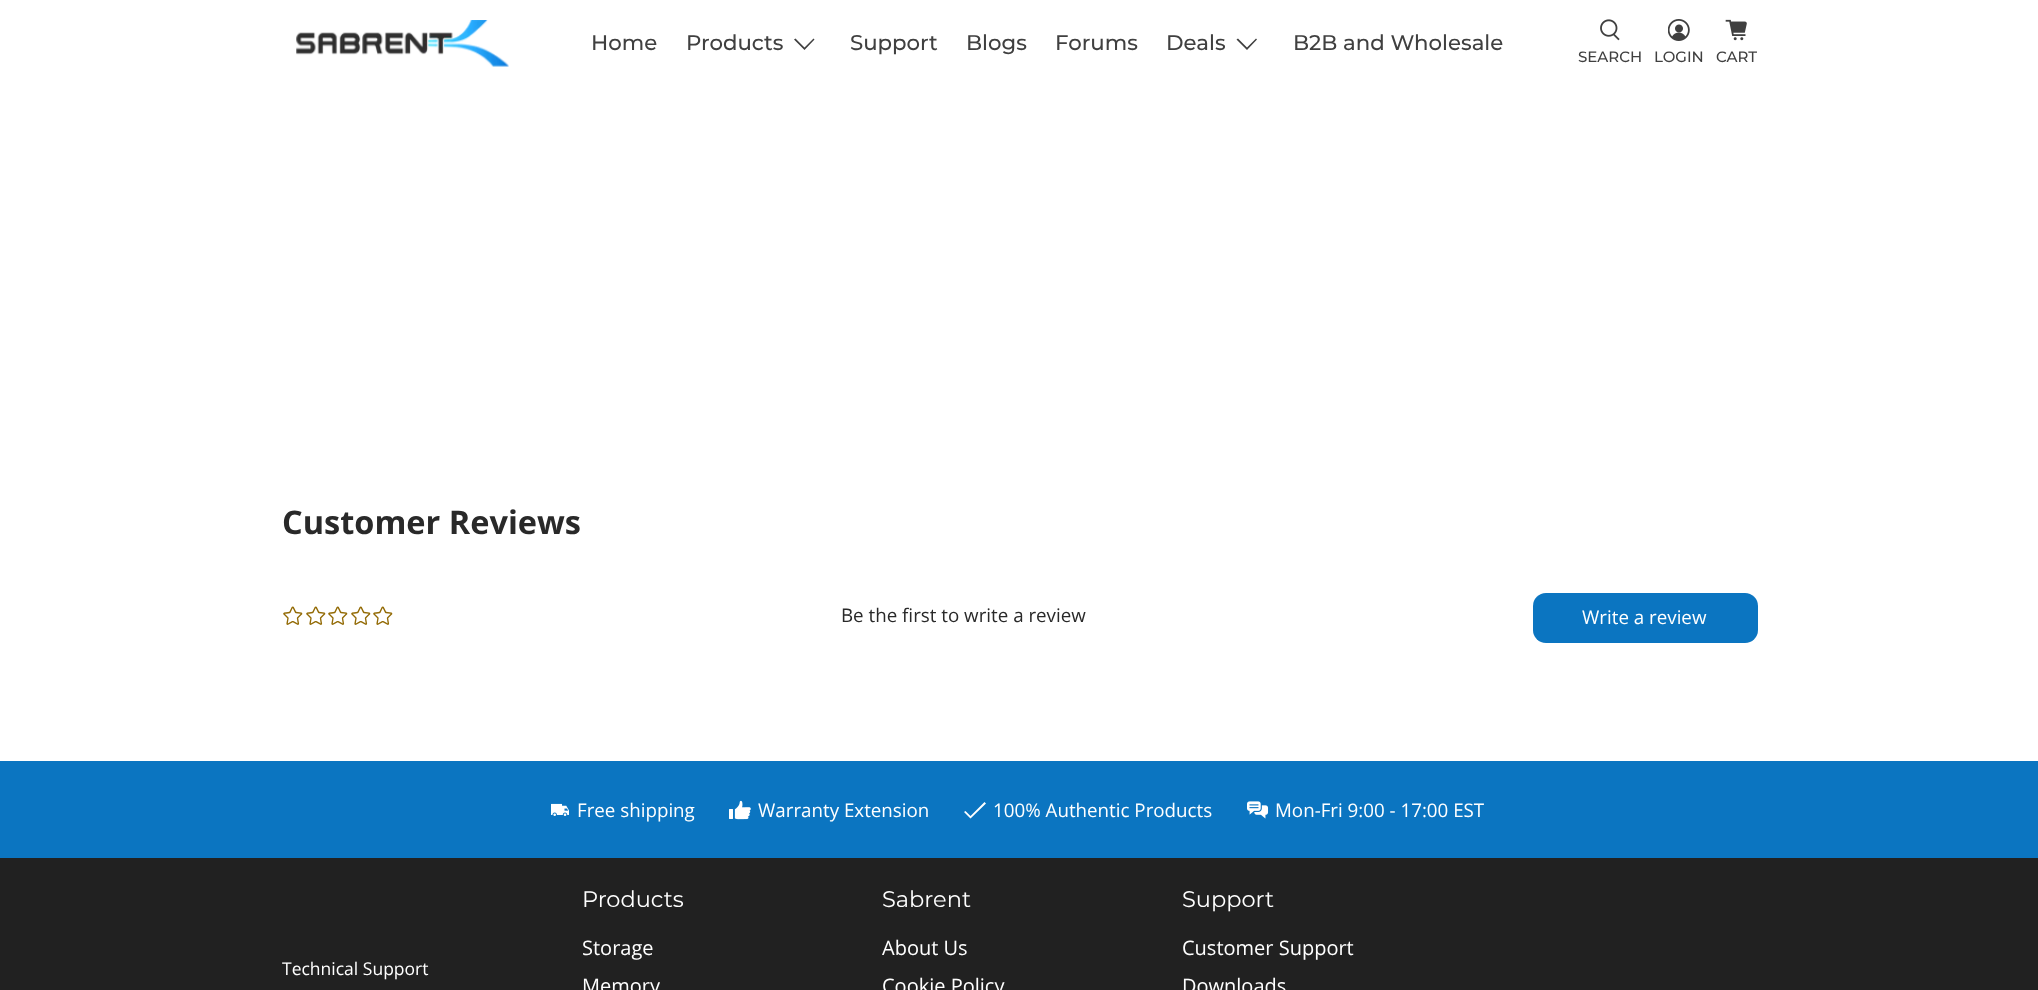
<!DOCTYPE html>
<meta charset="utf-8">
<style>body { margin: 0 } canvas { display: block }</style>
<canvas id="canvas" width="2038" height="990"></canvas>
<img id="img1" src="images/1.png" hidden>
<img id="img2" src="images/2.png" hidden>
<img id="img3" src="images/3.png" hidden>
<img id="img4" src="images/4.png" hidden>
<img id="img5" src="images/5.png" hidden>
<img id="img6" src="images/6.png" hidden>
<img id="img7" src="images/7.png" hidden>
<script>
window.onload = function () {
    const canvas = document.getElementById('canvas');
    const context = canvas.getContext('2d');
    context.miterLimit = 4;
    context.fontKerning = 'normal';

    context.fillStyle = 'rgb(255, 255, 255)';
    context.fillRect(0, 0, 2038, 990);
    context.drawImage(document.getElementById('img1'), 296, 20, 213, 47);
    context.fillStyle = 'rgb(64, 64, 64)';
    context.beginPath();
    context.moveTo(804.5, 50);
    context.lineTo(794, 39.5);
    context.lineTo(795.5, 38.5);
    context.lineTo(804.5, 47.5);
    context.lineTo(813.5, 38.5);
    context.lineTo(814.5, 39.5);
    context.closePath();
    context.fill();
    context.beginPath();
    context.moveTo(1247, 50);
    context.lineTo(1236.5, 39.5);
    context.lineTo(1238, 38.5);
    context.lineTo(1247, 47.5);
    context.lineTo(1256, 38.5);
    context.lineTo(1257, 39.5);
    context.closePath();
    context.fill();
    context.drawImage(document.getElementById('img2'), 1600, 19, 20, 22);
    context.drawImage(document.getElementById('img3'), 1668, 19, 22, 22);
    context.drawImage(document.getElementById('img4'), 1725, 19, 22, 22);
    context.fillStyle = 'rgb(11, 117, 193)';
    context.beginPath();
    context.roundRect(1533, 593, 225, 50, 13);
    context.fill();
    context.fillRect(0, 761, 2038, 97);
    context.drawImage(document.getElementById('img5'), 551, 803, 18, 13);
    context.drawImage(document.getElementById('img6'), 729, 800, 22, 20);
    context.fillStyle = 'rgb(255, 255, 255)';
    context.beginPath();
    context.moveTo(984.5, 802);
    context.lineTo(970.5, 816);
    context.lineTo(965.5, 811);
    context.lineTo(964, 812);
    context.lineTo(970.5, 818.5);
    context.lineTo(986, 803.5);
    context.closePath();
    context.fill();
    context.drawImage(document.getElementById('img7'), 1247, 801, 22, 18);
    context.fillStyle = 'rgb(33, 33, 33)';
    context.fillRect(0, 858, 2038, 132);
    context.font = '500 21.25px Montserrat';
    context.fillStyle = 'rgb(64, 64, 64)';
    context.fillText('Home', 591, 50);
    context.fillText('Products', 686, 50);
    context.fillText('Support', 850, 50);
    context.fillText('Blogs', 966, 50);
    context.fillText('Forums', 1055, 50);
    context.fillText('Deals', 1166, 50);
    context.fillText('B2B and Wholesale', 1293, 50);
    context.font = '500 15px Montserrat';
    context.fillText('SEARCH', 1578, 62);
    context.fillText('LOGIN', 1654, 62);
    context.fillText('CART', 1716, 62);
    context.font = 'bold 32.5px Open Sans';
    context.fillStyle = 'rgb(41, 41, 41)';
    context.fillText('Customer Reviews', 282, 534);
    context.font = '21px "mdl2"';
    context.fillStyle = 'rgb(147, 107, 6)';
    context.fillText('¤', 282, 626);
    context.fillText('¤', 305, 626);
    context.fillText('¤', 327, 626);
    context.fillText('¤', 350, 626);
    context.fillText('¤', 372, 626);
    context.font = '18.75px Open Sans';
    context.fillStyle = 'rgb(41, 41, 41)';
    context.fillText('Be the first to write a review', 841, 622);
    context.fillStyle = 'rgb(255, 255, 255)';
    context.fillText('Write a review', 1582, 624);
    context.fillText('Free shipping', 577, 817);
    context.fillText('Warranty Extension', 758, 817);
    context.fillText('100% Authentic Products', 993, 817);
    context.fillText('Mon-Fri 9:00 - 17:00 EST', 1275, 817);
    context.font = '17.5px Open Sans';
    context.fillText('Technical Support', 282, 975);
    context.font = '22.5px Montserrat';
    context.fillText('Products', 582, 907);
    context.font = '20px Open Sans';
    context.fillText('Storage', 582, 955);
    context.fillText('Memory', 582, 993);
    context.font = '22.5px Montserrat';
    context.fillText('Sabrent', 882, 907);
    context.font = '20px Open Sans';
    context.fillText('About Us', 882, 955);
    context.fillText('Cookie Policy', 882, 993);
    context.font = '22.5px Montserrat';
    context.fillText('Support', 1182, 907);
    context.font = '20px Open Sans';
    context.fillText('Customer Support', 1182, 955);
    context.fillText('Downloads', 1182, 993);
};
</script>
